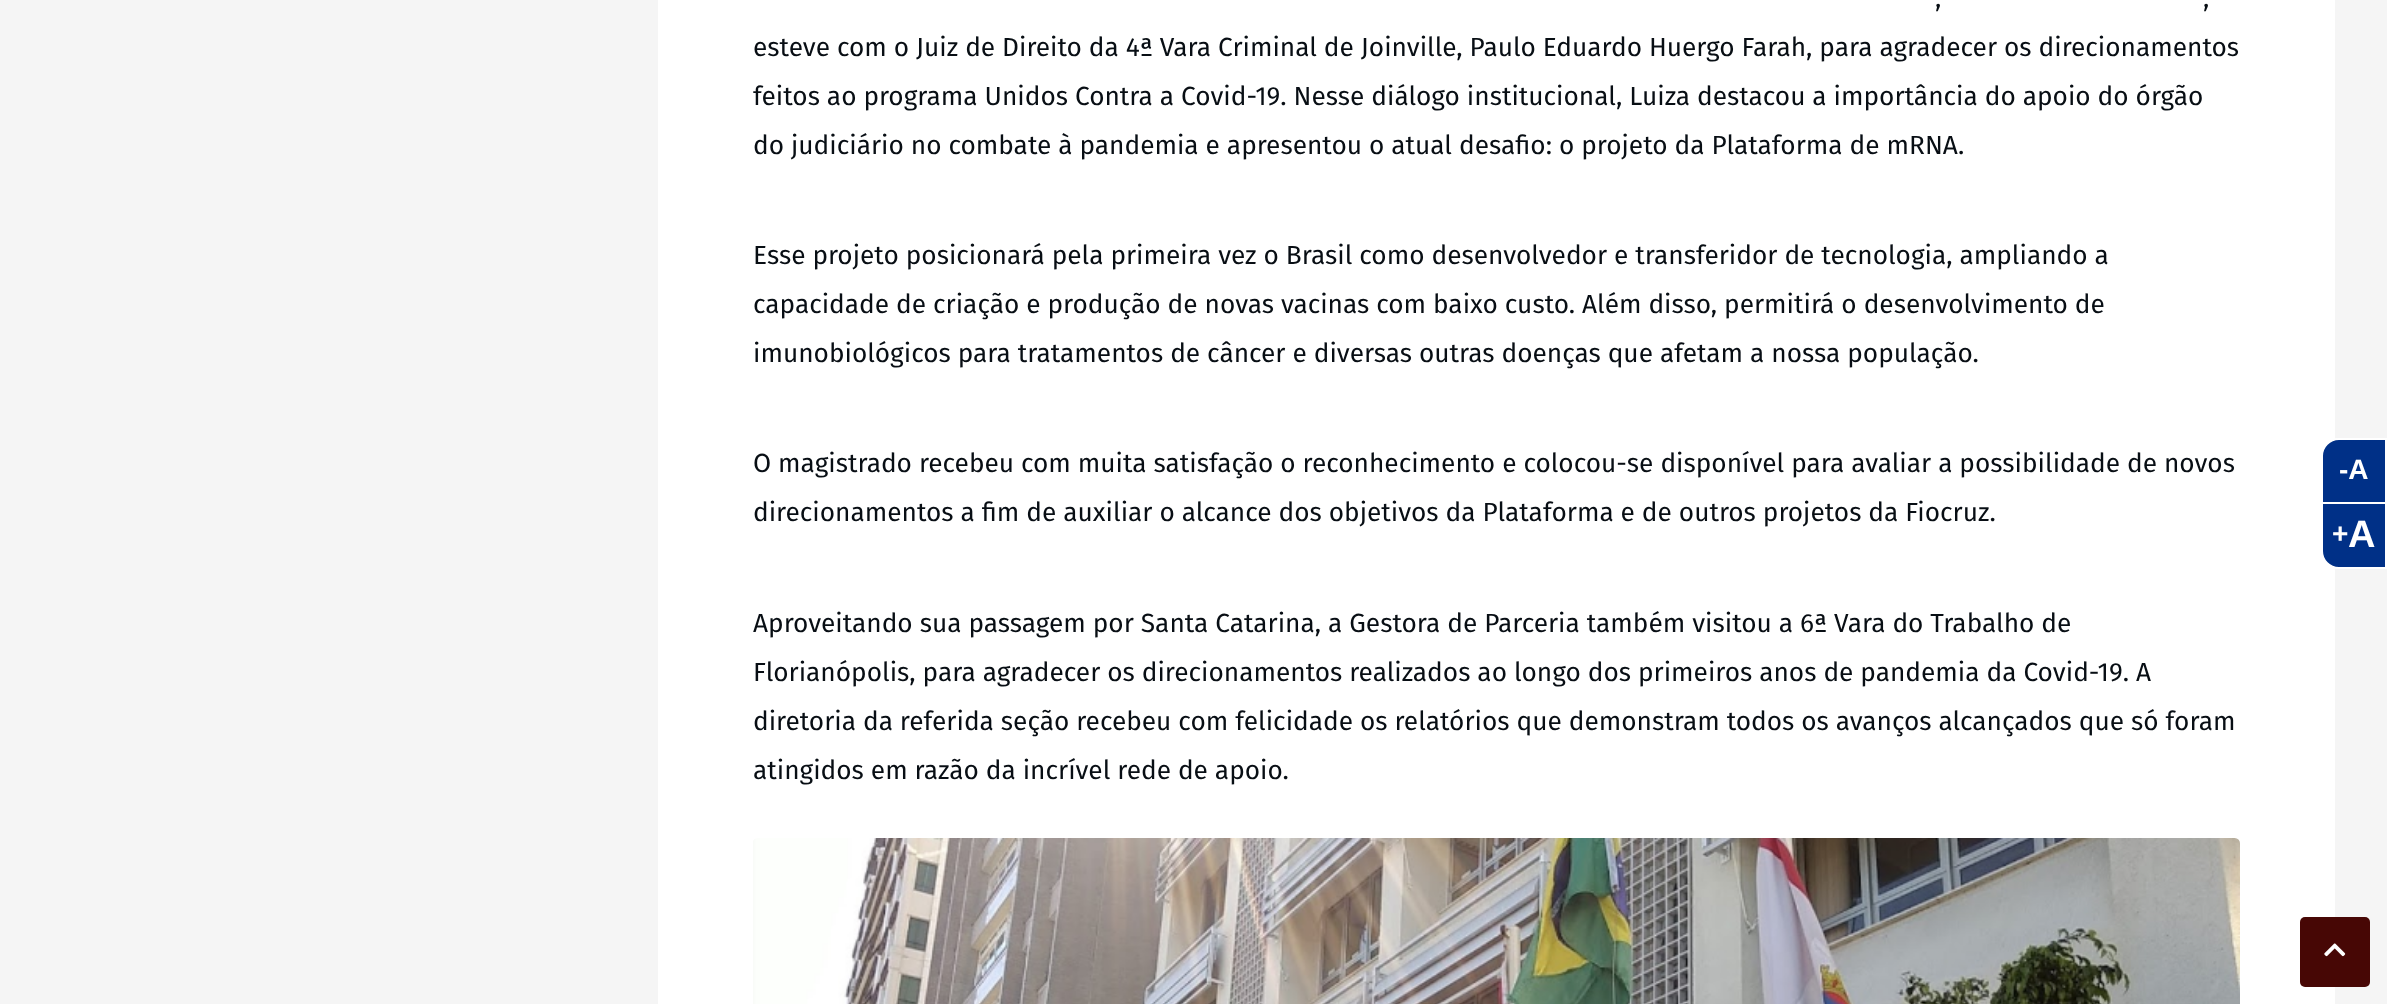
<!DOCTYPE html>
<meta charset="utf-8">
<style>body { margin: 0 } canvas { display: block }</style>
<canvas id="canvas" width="2387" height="1004"></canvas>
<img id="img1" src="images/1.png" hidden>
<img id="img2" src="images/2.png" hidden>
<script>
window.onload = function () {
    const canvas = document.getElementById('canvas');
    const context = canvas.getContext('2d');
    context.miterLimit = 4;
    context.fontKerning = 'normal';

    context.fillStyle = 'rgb(245, 245, 245)';
    context.fillRect(0, 0, 2387, 1004);
    context.fillStyle = 'rgb(255, 255, 255)';
    context.fillRect(658, 0, 1677, 1004);
    context.drawImage(document.getElementById('img1'), 753, 838, 1487, 166);
    context.fillStyle = 'rgb(0, 48, 135)';
    context.beginPath();
    context.roundRect(2322, 439, 64, 129, [17, 0, 0, 17]);
    context.fill();
    context.strokeStyle = 'rgb(255, 255, 255)';
    context.lineWidth = 2;
    context.stroke();
    context.fillStyle = 'rgb(255, 255, 255)';
    context.fillRect(2322, 502, 63, 2);
    context.fillStyle = 'rgb(71, 7, 5)';
    context.beginPath();
    context.roundRect(2300, 917, 70, 70, 5);
    context.fill();
    context.drawImage(document.getElementById('img2'), 2324, 943, 22, 14);
    context.font = '26.25px Fira Sans';
    context.fillStyle = 'rgb(8, 14, 20)';
    context.fillText(',', 1935, 7);
    context.fillText(',', 2203, 7);
    context.fillText('esteve com o Juiz de Direito da 4ª Vara Criminal de Joinville, Paulo Eduardo Huergo Farah, para agradecer os direcionamentos', 753, 56);
    context.fillText('feitos ao programa Unidos Contra a Covid-19. Nesse diálogo institucional, Luiza destacou a importância do apoio do órgão', 753, 105);
    context.fillText('do judiciário no combate à pandemia e apresentou o atual desafio: o projeto da Plataforma de mRNA.', 753, 154);
    context.fillText('Esse projeto posicionará pela primeira vez o Brasil como desenvolvedor e transferidor de tecnologia, ampliando a', 753, 264);
    context.fillText('capacidade de criação e produção de novas vacinas com baixo custo. Além disso, permitirá o desenvolvimento de', 753, 313);
    context.fillText('imunobiológicos para tratamentos de câncer e diversas outras doenças que afetam a nossa população.', 753, 362);
    context.fillText('O magistrado recebeu com muita satisfação o reconhecimento e colocou-se disponível para avaliar a possibilidade de novos', 753, 472);
    context.fillText('direcionamentos a fim de auxiliar o alcance dos objetivos da Plataforma e de outros projetos da Fiocruz.', 753, 521);
    context.fillText('Aproveitando sua passagem por Santa Catarina, a Gestora de Parceria também visitou a 6ª Vara do Trabalho de', 753, 632);
    context.fillText('Florianópolis, para agradecer os direcionamentos realizados ao longo dos primeiros anos de pandemia da Covid-19. A', 753, 681);
    context.fillText('diretoria da referida seção recebeu com felicidade os relatórios que demonstram todos os avanços alcançados que só foram', 753, 730);
    context.fillText('atingidos em razão da incrível rede de apoio.', 753, 779);
    context.font = 'bold 28px Liberation Sans';
    context.fillStyle = 'rgb(255, 255, 255)';
    context.fillText('-A', 2339, 479);
    context.fillText('+', 2332, 543);
    context.font = 'bold 38px Liberation Sans';
    context.fillText('A', 2348, 547);
};
</script>
